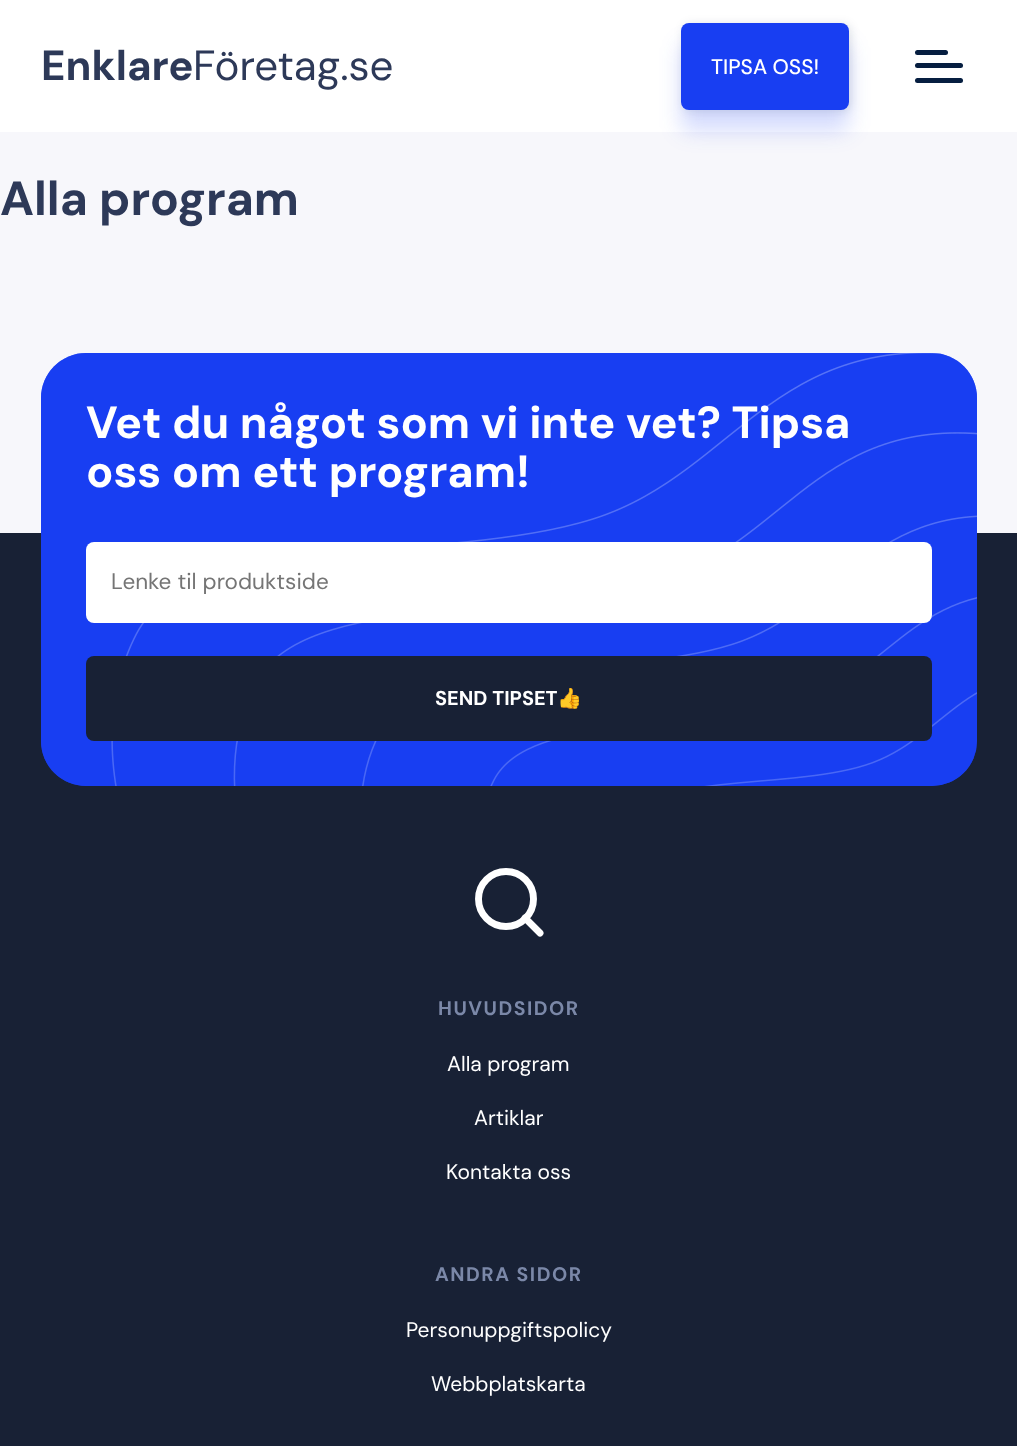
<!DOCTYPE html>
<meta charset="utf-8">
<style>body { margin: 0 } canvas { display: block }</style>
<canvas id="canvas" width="1017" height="1446"></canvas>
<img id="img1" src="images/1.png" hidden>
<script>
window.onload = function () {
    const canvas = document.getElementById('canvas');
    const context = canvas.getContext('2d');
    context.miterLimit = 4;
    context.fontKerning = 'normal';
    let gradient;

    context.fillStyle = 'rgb(247, 247, 251)';
    context.fillRect(0, 0, 1017, 1446);
    context.fillStyle = 'rgb(255, 255, 255)';
    context.fillRect(0, 0, 1017, 132);
    context.fillStyle = 'rgba(24, 62, 242, 0.19)';
    context.filter = 'blur(10.5px)';
    context.beginPath();
    context.roundRect(681, 44, 168, 87, 8);
    context.fill();
    context.filter = 'none';
    context.fillStyle = 'rgba(5, 21, 46, 0.12)';
    context.filter = 'blur(5px)';
    context.beginPath();
    context.roundRect(683, 24, 168, 87, 8);
    context.fill();
    context.filter = 'none';
    context.fillStyle = 'rgb(24, 62, 242)';
    context.beginPath();
    context.roundRect(681, 23, 168, 87, 8);
    context.fill();
    context.fillStyle = 'rgb(6, 30, 64)';
    context.beginPath();
    context.roundRect(915, 50, 33, 5, 2.5);
    context.fill();
    context.beginPath();
    context.roundRect(915, 63, 48, 5, 2.5);
    context.fill();
    context.beginPath();
    context.roundRect(915, 78, 48, 5, 2.5);
    context.fill();
    context.fillStyle = 'rgb(24, 33, 53)';
    context.fillRect(0, 533, 1017, 913);
    context.fillStyle = 'rgb(24, 62, 242)';
    context.beginPath();
    context.roundRect(41, 353, 936, 433, 45);
    context.fill();
    context.drawImage(document.getElementById('img1'), 111, 353, 866, 433);
    gradient = context.createLinearGradient(509, 352, 509, 786);
    gradient.addColorStop(0, 'rgba(24, 62, 242, 0.7)');
    gradient.addColorStop(1, 'rgba(24, 62, 242, 0.77)');
    context.fillStyle = gradient;
    context.beginPath();
    context.roundRect(41, 353, 936, 433, 45);
    context.fill();
    context.fillStyle = 'rgb(255, 255, 255)';
    context.beginPath();
    context.roundRect(86, 542, 846, 81, 8);
    context.fill();
    context.fillStyle = 'rgb(24, 33, 53)';
    context.beginPath();
    context.roundRect(86, 656, 846, 85, 8);
    context.fill();
    context.beginPath();
    context.arc(506, 899, 27.5, 0, 2 * Math.PI);
    context.strokeStyle = 'rgb(255, 255, 255)';
    context.lineWidth = 6.9;
    context.stroke();
    context.beginPath();
    context.moveTo(540, 933);
    context.lineTo(525, 918);
    context.lineCap = 'round';
    context.lineJoin = 'round';
    context.stroke();
    context.font = 'bold 42px DM Sans';
    context.fillStyle = 'rgb(45, 57, 88)';
    context.fillText('Enklare', 41, 80);
    context.font = '42px DM Sans';
    context.fillText('Företag.se', 193, 80);
    context.font = '500 21px DM Sans';
    context.fillStyle = 'rgb(255, 255, 255)';
    context.fillText('TIPSA OSS!', 711, 74);
    context.font = 'bold 48px DM Sans';
    context.fillStyle = 'rgb(45, 57, 88)';
    context.fillText('Alla program', 0, 215);
    context.font = 'bold 45px DM Sans';
    context.fillStyle = 'rgb(255, 255, 255)';
    context.fillText('Vet du något som vi inte vet? Tipsa', 86, 438);
    context.fillText('oss om ett program!', 86, 487);
    context.font = '22.5px DM Sans';
    context.fillStyle = 'rgb(117, 117, 117)';
    context.fillText('Lenke til produktside', 111, 589);
    context.font = 'bold 20px DM Sans';
    context.fillStyle = 'rgb(255, 255, 255)';
    context.fillText('SEND TIPSET', 435, 705);
    context.font = 'bold 20px Noto Color Emoji';
    context.fillText('👍', 557, 705);
    context.letterSpacing = '1.5px';
    context.font = 'bold 19.5px DM Sans';
    context.fillStyle = 'rgb(123, 136, 168)';
    context.fillText('HUVUDSIDOR', 438, 1015);
    context.letterSpacing = '0px';
    context.font = '21px DM Sans';
    context.fillStyle = 'rgb(255, 255, 255)';
    context.fillText('Alla program', 447, 1071);
    context.fillText('Artiklar', 474, 1125);
    context.fillText('Kontakta oss', 446, 1179);
    context.letterSpacing = '1.5px';
    context.font = 'bold 19.5px DM Sans';
    context.fillStyle = 'rgb(123, 136, 168)';
    context.fillText('ANDRA SIDOR', 435, 1281);
    context.letterSpacing = '0px';
    context.font = '21px DM Sans';
    context.fillStyle = 'rgb(255, 255, 255)';
    context.fillText('Personuppgiftspolicy', 406, 1337);
    context.fillText('Webbplatskarta', 431, 1391);
};
</script>
